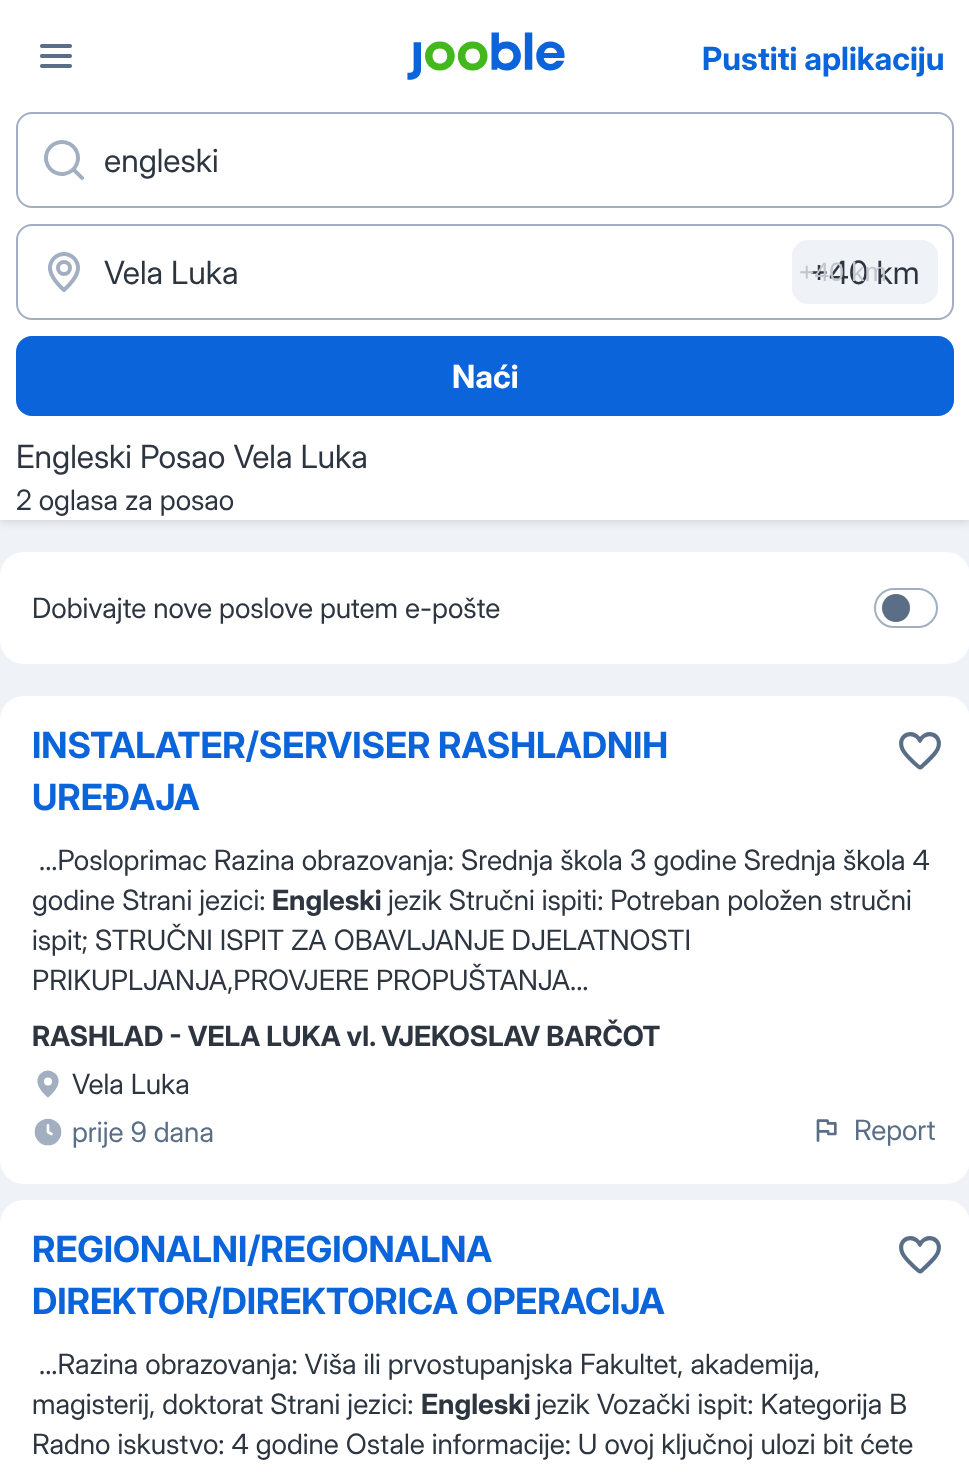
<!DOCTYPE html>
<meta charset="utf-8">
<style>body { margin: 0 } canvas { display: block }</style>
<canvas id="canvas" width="969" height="1480"></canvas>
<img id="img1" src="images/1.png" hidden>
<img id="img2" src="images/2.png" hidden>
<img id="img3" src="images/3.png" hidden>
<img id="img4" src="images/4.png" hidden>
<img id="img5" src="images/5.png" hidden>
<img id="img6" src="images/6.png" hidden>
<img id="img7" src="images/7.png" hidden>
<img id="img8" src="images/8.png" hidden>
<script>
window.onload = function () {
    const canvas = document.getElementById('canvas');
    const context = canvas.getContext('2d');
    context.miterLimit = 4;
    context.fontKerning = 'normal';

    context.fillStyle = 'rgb(239, 242, 246)';
    context.fillRect(0, 0, 969, 1480);
    context.fillStyle = 'rgba(23, 30, 38, 0.12)';
    context.filter = 'blur(6px)';
    context.beginPath();
    context.rect(0, 0, 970, 520);
    context.fill();
    context.filter = 'none';
    context.fillStyle = 'rgba(23, 30, 38, 0.08)';
    context.filter = 'blur(4px)';
    context.beginPath();
    context.rect(0, 0, 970, 520);
    context.fill();
    context.filter = 'none';
    context.fillStyle = 'rgb(255, 255, 255)';
    context.fillRect(0, 0, 969, 520);
    context.drawImage(document.getElementById('img1'), 40, 44, 32, 24);
    context.drawImage(document.getElementById('img2'), 407, 32, 158, 48);
    context.beginPath();
    context.roundRect(17, 113, 936, 94, 15);
    context.strokeStyle = 'rgb(161, 175, 193)';
    context.lineWidth = 2;
    context.stroke();
    context.drawImage(document.getElementById('img3'), 44, 140, 40, 40);
    context.beginPath();
    context.roundRect(17, 225, 936, 94, 15);
    context.stroke();
    context.drawImage(document.getElementById('img4'), 48, 252, 32, 40);
    context.fillStyle = 'rgb(239, 242, 246)';
    context.beginPath();
    context.roundRect(792, 240, 146, 64, 16);
    context.fill();
    context.fillStyle = 'rgb(11, 100, 217)';
    context.beginPath();
    context.roundRect(16, 336, 938, 80, 16);
    context.fill();
    context.fillStyle = 'rgb(255, 255, 255)';
    context.beginPath();
    context.roundRect(0, 552, 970, 112, 24);
    context.fill();
    context.beginPath();
    context.roundRect(875, 589, 62, 38, 19);
    context.stroke();
    context.fillStyle = 'rgb(90, 111, 135)';
    context.beginPath();
    context.arc(896, 608, 14, 0, 2 * Math.PI);
    context.fill();
    context.fillStyle = 'rgb(255, 255, 255)';
    context.beginPath();
    context.roundRect(0, 696, 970, 488, 24);
    context.fill();
    context.drawImage(document.getElementById('img5'), 899, 732, 42, 38);
    context.drawImage(document.getElementById('img6'), 37, 1070, 22, 28);
    context.drawImage(document.getElementById('img7'), 34, 1118, 28, 28);
    context.drawImage(document.getElementById('img8'), 816, 1119, 21, 23);
    context.beginPath();
    context.roundRect(0, 1200, 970, 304, 24);
    context.fill();
    context.drawImage(document.getElementById('img5'), 899, 1236, 42, 38);
    context.font = 'bold 32px Inter Display';
    context.fillStyle = 'rgb(11, 100, 217)';
    context.fillText('Pustiti aplikaciju', 702, 70);
    context.font = '32px Inter Display';
    context.fillStyle = 'rgb(45, 53, 64)';
    context.fillText('engleski', 104, 172);
    context.fillText('Vela Luka', 104, 284);
    context.fillText('+40 km', 809, 284);
    context.font = '26.5px Liberation Sans';
    context.fillStyle = 'rgb(194, 198, 204)';
    context.fillText('+40 km', 799, 281);
    context.font = 'bold 32px Inter Display';
    context.fillStyle = 'rgb(255, 255, 255)';
    context.fillText('Naći', 452, 388);
    context.font = '32px Inter Display';
    context.fillStyle = 'rgb(45, 53, 64)';
    context.fillText('Engleski Posao Vela Luka', 16, 468);
    context.font = '28px Inter Display';
    context.fillText('2 oglasa za posao', 16, 510);
    context.fillText('Dobivajte nove poslove putem e-pošte', 32, 618);
    context.font = 'bold 36px Inter Display';
    context.fillStyle = 'rgb(11, 100, 217)';
    context.fillText('INSTALATER/SERVISER RASHLADNIH', 32, 758);
    context.fillText('UREĐAJA', 32, 810);
    context.font = '28px Inter Display';
    context.fillStyle = 'rgb(45, 53, 64)';
    context.fillText('...Posloprimac Razina obrazovanja: Srednja škola 3 godine Srednja škola 4', 39, 870);
    context.fillText('godine Strani jezici:', 32, 910);
    context.font = 'bold 28px Inter Display';
    context.fillText('Engleski', 272, 910);
    context.font = '28px Inter Display';
    context.fillText('jezik Stručni ispiti: Potreban položen stručni', 388, 910);
    context.fillText('ispit; STRUČNI ISPIT ZA OBAVLJANJE DJELATNOSTI', 32, 950);
    context.fillText('PRIKUPLJANJA,PROVJERE PROPUŠTANJA...', 32, 990);
    context.font = 'bold 28px Inter Display';
    context.fillText('RASHLAD - VELA LUKA vl. VJEKOSLAV BARČOT', 32, 1046);
    context.font = '28px Inter Display';
    context.fillText('Vela Luka', 72, 1094);
    context.fillStyle = 'rgb(90, 111, 135)';
    context.fillText('prije 9 dana', 72, 1142);
    context.fillText('Report', 854, 1140);
    context.font = 'bold 36px Inter Display';
    context.fillStyle = 'rgb(11, 100, 217)';
    context.fillText('REGIONALNI/REGIONALNA', 32, 1262);
    context.fillText('DIREKTOR/DIREKTORICA OPERACIJA', 32, 1314);
    context.font = '28px Inter Display';
    context.fillStyle = 'rgb(45, 53, 64)';
    context.fillText('...Razina obrazovanja: Viša ili prvostupanjska Fakultet, akademija,', 39, 1374);
    context.fillText('magisterij, doktorat Strani jezici:', 32, 1414);
    context.font = 'bold 28px Inter Display';
    context.fillText('Engleski', 421, 1414);
    context.font = '28px Inter Display';
    context.fillText('jezik Vozački ispit: Kategorija B', 536, 1414);
    context.fillText('Radno iskustvo: 4 godine Ostale informacije: U ovoj ključnoj ulozi bit ćete', 32, 1454);
};
</script>
